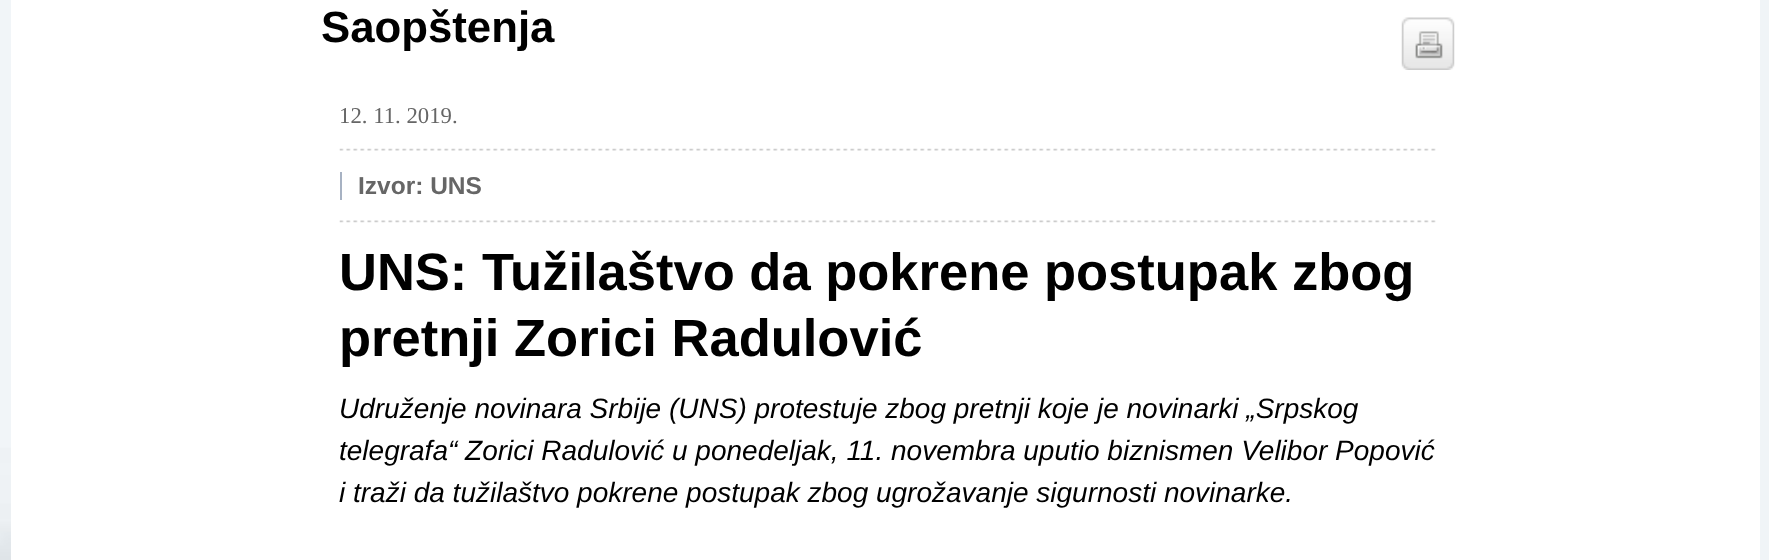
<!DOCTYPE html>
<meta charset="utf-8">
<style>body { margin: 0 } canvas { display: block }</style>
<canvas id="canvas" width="1769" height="560"></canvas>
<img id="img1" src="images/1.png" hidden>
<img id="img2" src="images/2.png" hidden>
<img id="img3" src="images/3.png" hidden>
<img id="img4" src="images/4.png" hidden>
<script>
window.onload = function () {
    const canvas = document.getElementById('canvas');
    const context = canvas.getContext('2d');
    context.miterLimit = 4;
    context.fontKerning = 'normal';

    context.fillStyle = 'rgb(255, 255, 255)';
    context.fillRect(0, 0, 1769, 560);
    context.drawImage(document.getElementById('img1'), 0, 0, 11, 560);
    context.drawImage(document.getElementById('img2'), 1401, 17, 54, 53);
    context.drawImage(document.getElementById('img3'), 339, 148, 1097, 3);
    context.drawImage(document.getElementById('img4'), 339, 220, 1097, 3);
    context.fillStyle = 'rgb(167, 178, 195)';
    context.fillRect(340, 172, 2, 28);
    context.fillStyle = 'rgb(240, 244, 247)';
    context.fillRect(1760, 0, 9, 560);
    context.font = 'bold 43.75px Liberation Sans';
    context.fillStyle = 'rgb(0, 0, 0)';
    context.fillText('Saopštenja', 321, 42);
    context.font = '22.75px Liberation Serif';
    context.fillStyle = 'rgb(102, 102, 102)';
    context.fillText('12. 11. 2019.', 339, 123);
    context.font = 'bold 24.5px Liberation Sans';
    context.fillText('Izvor: UNS', 358, 194);
    context.font = 'bold 52.5px Liberation Sans';
    context.fillStyle = 'rgb(0, 0, 0)';
    context.fillText('UNS: Tužilaštvo da pokrene postupak zbog', 339, 290);
    context.fillText('pretnji Zorici Radulović', 339, 356);
    context.font = 'italic 28px Liberation Sans';
    context.fillText('Udruženje novinara Srbije (UNS) protestuje zbog pretnji koje je novinarki „Srpskog', 339, 418);
    context.fillText('telegrafa“ Zorici Radulović u ponedeljak, 11. novembra uputio biznismen Velibor Popović', 339, 460);
    context.fillText('i traži da tužilaštvo pokrene postupak zbog ugrožavanje sigurnosti novinarke.', 339, 502);
};
</script>
